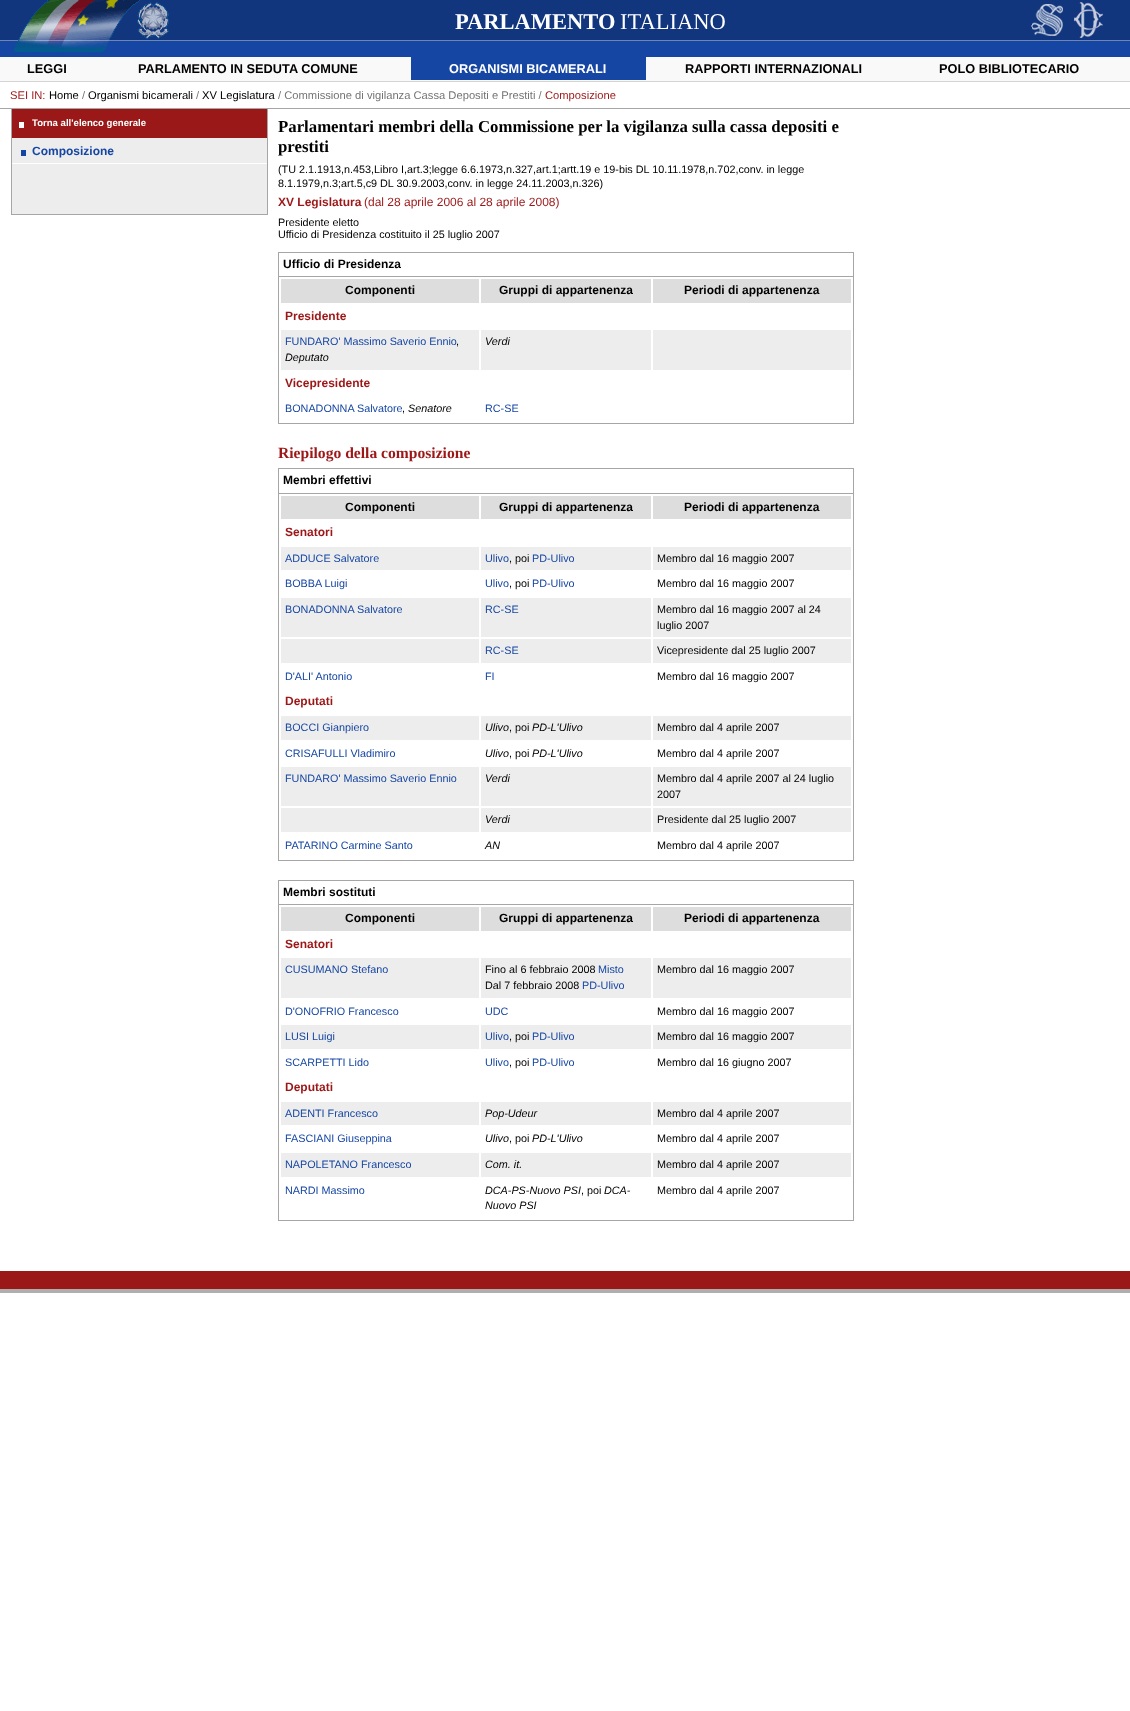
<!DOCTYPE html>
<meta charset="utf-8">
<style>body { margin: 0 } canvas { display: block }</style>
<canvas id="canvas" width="1130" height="1711"></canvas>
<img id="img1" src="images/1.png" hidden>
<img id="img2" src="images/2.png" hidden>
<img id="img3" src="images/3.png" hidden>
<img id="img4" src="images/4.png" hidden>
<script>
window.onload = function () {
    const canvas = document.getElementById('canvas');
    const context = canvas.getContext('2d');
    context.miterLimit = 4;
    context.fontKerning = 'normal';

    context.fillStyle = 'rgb(255, 255, 255)';
    context.fillRect(0, 0, 1130, 1711);
    context.drawImage(document.getElementById('img1'), 0, 0, 1130, 57);
    context.drawImage(document.getElementById('img2'), 14, 0, 155, 52);
    context.drawImage(document.getElementById('img3'), 1031, 4, 32, 32);
    context.drawImage(document.getElementById('img4'), 1074, 2, 29, 36);
    context.fillStyle = 'rgb(249, 249, 249)';
    context.fillRect(0, 57, 1130, 24);
    context.fillStyle = 'rgb(212, 212, 212)';
    context.fillRect(0, 81, 1130, 1);
    context.fillStyle = 'rgb(22, 70, 163)';
    context.fillRect(411, 57, 235, 23);
    context.fillStyle = 'rgb(166, 166, 166)';
    context.fillRect(0, 108, 1130, 1);
    context.fillStyle = 'rgb(237, 237, 237)';
    context.fillRect(12, 138, 255, 76);
    context.strokeStyle = 'rgb(166, 166, 166)';
    context.strokeRect(11.5, 108.5, 256, 106);
    context.fillStyle = 'rgb(155, 24, 24)';
    context.fillRect(12, 109, 255, 29);
    context.fillStyle = 'rgb(255, 255, 255)';
    context.fillRect(19, 122, 5, 6);
    context.fillRect(12, 163, 255, 1);
    context.fillStyle = 'rgb(22, 70, 163)';
    context.fillRect(21, 150, 5, 6);
    context.strokeRect(278.5, 252.5, 575, 171);
    context.fillStyle = 'rgb(166, 166, 166)';
    context.fillRect(279, 276, 574, 1);
    context.fillStyle = 'rgb(221, 221, 221)';
    context.fillRect(281, 279, 198, 24);
    context.fillRect(481, 279, 170, 24);
    context.fillRect(653, 279, 198, 24);
    context.fillStyle = 'rgb(237, 237, 237)';
    context.fillRect(281, 330, 198, 40);
    context.fillRect(481, 330, 170, 40);
    context.fillRect(653, 330, 198, 40);
    context.strokeRect(278.5, 468.5, 575, 392);
    context.fillStyle = 'rgb(166, 166, 166)';
    context.fillRect(279, 493, 574, 1);
    context.fillStyle = 'rgb(221, 221, 221)';
    context.fillRect(281, 496, 198, 23);
    context.fillRect(481, 496, 170, 23);
    context.fillRect(653, 496, 198, 23);
    context.fillStyle = 'rgb(237, 237, 237)';
    context.fillRect(281, 547, 198, 23);
    context.fillRect(481, 547, 170, 23);
    context.fillRect(653, 547, 198, 23);
    context.fillRect(281, 598, 198, 39);
    context.fillRect(481, 598, 170, 39);
    context.fillRect(653, 598, 198, 39);
    context.fillRect(281, 639, 198, 24);
    context.fillRect(481, 639, 170, 24);
    context.fillRect(653, 639, 198, 24);
    context.fillRect(281, 716, 198, 24);
    context.fillRect(481, 716, 170, 24);
    context.fillRect(653, 716, 198, 24);
    context.fillRect(281, 767, 198, 39);
    context.fillRect(481, 767, 170, 39);
    context.fillRect(653, 767, 198, 39);
    context.fillRect(281, 808, 198, 24);
    context.fillRect(481, 808, 170, 24);
    context.fillRect(653, 808, 198, 24);
    context.strokeRect(278.5, 880.5, 575, 340);
    context.fillStyle = 'rgb(166, 166, 166)';
    context.fillRect(279, 904, 574, 1);
    context.fillStyle = 'rgb(221, 221, 221)';
    context.fillRect(281, 907, 198, 24);
    context.fillRect(481, 907, 170, 24);
    context.fillRect(653, 907, 198, 24);
    context.fillStyle = 'rgb(237, 237, 237)';
    context.fillRect(281, 958, 198, 40);
    context.fillRect(481, 958, 170, 40);
    context.fillRect(653, 958, 198, 40);
    context.fillRect(281, 1025, 198, 24);
    context.fillRect(481, 1025, 170, 24);
    context.fillRect(653, 1025, 198, 24);
    context.fillRect(281, 1102, 198, 23);
    context.fillRect(481, 1102, 170, 23);
    context.fillRect(653, 1102, 198, 23);
    context.fillRect(281, 1153, 198, 24);
    context.fillRect(481, 1153, 170, 24);
    context.fillRect(653, 1153, 198, 24);
    context.fillStyle = 'rgb(174, 174, 174)';
    context.fillRect(0, 1289, 1130, 4);
    context.fillStyle = 'rgb(155, 24, 24)';
    context.fillRect(0, 1271, 1130, 18);
    context.font = 'bold 22.5px Liberation Serif';
    context.fillStyle = 'rgb(255, 255, 255)';
    context.fillText('PARLAMENTO', 455, 29);
    context.font = '22.5px Liberation Serif';
    context.fillText('ITALIANO', 620, 29);
    context.font = 'bold 12.75px Liberation Sans';
    context.fillStyle = 'rgb(0, 0, 0)';
    context.fillText('LEGGI', 27, 73);
    context.fillText('PARLAMENTO IN SEDUTA COMUNE', 138, 73);
    context.fillStyle = 'rgb(255, 255, 255)';
    context.fillText('ORGANISMI BICAMERALI', 449, 73);
    context.fillStyle = 'rgb(0, 0, 0)';
    context.fillText('RAPPORTI INTERNAZIONALI', 685, 73);
    context.fillText('POLO BIBLIOTECARIO', 939, 73);
    context.font = '11.2px Liberation Sans';
    context.fillStyle = 'rgb(156, 23, 24)';
    context.fillText('SEI IN:', 10, 99);
    context.fillStyle = 'rgb(0, 0, 0)';
    context.fillText('Home', 49, 99);
    context.fillStyle = 'rgb(116, 116, 116)';
    context.fillText('/', 82, 99);
    context.fillStyle = 'rgb(0, 0, 0)';
    context.fillText('Organismi bicamerali', 88, 99);
    context.fillStyle = 'rgb(116, 116, 116)';
    context.fillText('/', 196, 99);
    context.fillStyle = 'rgb(0, 0, 0)';
    context.fillText('XV Legislatura', 202, 99);
    context.fillStyle = 'rgb(116, 116, 116)';
    context.fillText('/ Commissione di vigilanza Cassa Depositi e Prestiti /', 278, 99);
    context.fillStyle = 'rgb(156, 23, 24)';
    context.fillText('Composizione', 545, 99);
    context.font = 'bold 9.6px Liberation Sans';
    context.fillStyle = 'rgb(255, 255, 255)';
    context.fillText('Torna all\'elenco generale', 32, 126);
    context.font = 'bold 12px Liberation Sans';
    context.fillStyle = 'rgb(22, 70, 163)';
    context.fillText('Composizione', 32, 155);
    context.font = 'bold 16.8px Liberation Serif';
    context.fillStyle = 'rgb(0, 0, 0)';
    context.fillText('Parlamentari membri della Commissione per la vigilanza sulla cassa depositi e', 278, 132);
    context.fillText('prestiti', 278, 152);
    context.font = '10.8px Liberation Sans';
    context.fillText('(TU 2.1.1913,n.453,Libro I,art.3;legge 6.6.1973,n.327,art.1;artt.19 e 19-bis DL 10.11.1978,n.702,conv. in legge', 278, 173);
    context.fillText('8.1.1979,n.3;art.5,c9 DL 30.9.2003,conv. in legge 24.11.2003,n.326)', 278, 187);
    context.font = 'bold 12px Liberation Sans';
    context.fillStyle = 'rgb(156, 23, 24)';
    context.fillText('XV Legislatura', 278, 206);
    context.font = '12px Liberation Sans';
    context.fillText('(dal 28 aprile 2006 al 28 aprile 2008)', 364, 206);
    context.font = '10.8px Liberation Sans';
    context.fillStyle = 'rgb(0, 0, 0)';
    context.fillText('Presidente eletto', 278, 226);
    context.fillText('Ufficio di Presidenza costituito il 25 luglio 2007', 278, 238);
    context.font = 'bold 12px Liberation Sans';
    context.fillText('Ufficio di Presidenza', 283, 268);
    context.fillText('Componenti', 345, 294);
    context.fillText('Gruppi di appartenenza', 499, 294);
    context.fillText('Periodi di appartenenza', 684, 294);
    context.fillStyle = 'rgb(156, 23, 24)';
    context.fillText('Presidente', 285, 320);
    context.font = '10.8px Liberation Sans';
    context.fillStyle = 'rgb(22, 70, 163)';
    context.fillText('FUNDARO\' Massimo Saverio Ennio', 285, 345);
    context.fillStyle = 'rgb(0, 0, 0)';
    context.fillText(',', 456, 345);
    context.font = 'italic 10.8px Liberation Sans';
    context.fillText('Deputato', 285, 361);
    context.fillText('Verdi', 485, 345);
    context.font = 'bold 12px Liberation Sans';
    context.fillStyle = 'rgb(156, 23, 24)';
    context.fillText('Vicepresidente', 285, 387);
    context.font = '10.8px Liberation Sans';
    context.fillStyle = 'rgb(22, 70, 163)';
    context.fillText('BONADONNA Salvatore', 285, 412);
    context.fillStyle = 'rgb(0, 0, 0)';
    context.fillText(',', 402, 412);
    context.font = 'italic 10.8px Liberation Sans';
    context.fillText('Senatore', 408, 412);
    context.font = '10.8px Liberation Sans';
    context.fillStyle = 'rgb(22, 70, 163)';
    context.fillText('RC-SE', 485, 412);
    context.font = 'bold 15.6px Liberation Serif';
    context.fillStyle = 'rgb(156, 23, 24)';
    context.fillText('Riepilogo della composizione', 278, 458);
    context.font = 'bold 12px Liberation Sans';
    context.fillStyle = 'rgb(0, 0, 0)';
    context.fillText('Membri effettivi', 283, 484);
    context.fillText('Componenti', 345, 511);
    context.fillText('Gruppi di appartenenza', 499, 511);
    context.fillText('Periodi di appartenenza', 684, 511);
    context.fillStyle = 'rgb(156, 23, 24)';
    context.fillText('Senatori', 285, 536);
    context.font = '10.8px Liberation Sans';
    context.fillStyle = 'rgb(22, 70, 163)';
    context.fillText('ADDUCE Salvatore', 285, 562);
    context.fillText('Ulivo', 485, 562);
    context.fillStyle = 'rgb(0, 0, 0)';
    context.fillText(', poi', 509, 562);
    context.fillStyle = 'rgb(22, 70, 163)';
    context.fillText('PD-Ulivo', 532, 562);
    context.fillStyle = 'rgb(0, 0, 0)';
    context.fillText('Membro dal 16 maggio 2007', 657, 562);
    context.fillStyle = 'rgb(22, 70, 163)';
    context.fillText('BOBBA Luigi', 285, 587);
    context.fillText('Ulivo', 485, 587);
    context.fillStyle = 'rgb(0, 0, 0)';
    context.fillText(', poi', 509, 587);
    context.fillStyle = 'rgb(22, 70, 163)';
    context.fillText('PD-Ulivo', 532, 587);
    context.fillStyle = 'rgb(0, 0, 0)';
    context.fillText('Membro dal 16 maggio 2007', 657, 587);
    context.fillStyle = 'rgb(22, 70, 163)';
    context.fillText('BONADONNA Salvatore', 285, 613);
    context.fillText('RC-SE', 485, 613);
    context.fillStyle = 'rgb(0, 0, 0)';
    context.fillText('Membro dal 16 maggio 2007 al 24', 657, 613);
    context.fillText('luglio 2007', 657, 629);
    context.fillStyle = 'rgb(22, 70, 163)';
    context.fillText('RC-SE', 485, 654);
    context.fillStyle = 'rgb(0, 0, 0)';
    context.fillText('Vicepresidente dal 25 luglio 2007', 657, 654);
    context.fillStyle = 'rgb(22, 70, 163)';
    context.fillText('D\'ALI\' Antonio', 285, 680);
    context.fillText('FI', 485, 680);
    context.fillStyle = 'rgb(0, 0, 0)';
    context.fillText('Membro dal 16 maggio 2007', 657, 680);
    context.font = 'bold 12px Liberation Sans';
    context.fillStyle = 'rgb(156, 23, 24)';
    context.fillText('Deputati', 285, 705);
    context.font = '10.8px Liberation Sans';
    context.fillStyle = 'rgb(22, 70, 163)';
    context.fillText('BOCCI Gianpiero', 285, 731);
    context.font = 'italic 10.8px Liberation Sans';
    context.fillStyle = 'rgb(0, 0, 0)';
    context.fillText('Ulivo', 485, 731);
    context.font = '10.8px Liberation Sans';
    context.fillText(', poi', 509, 731);
    context.font = 'italic 10.8px Liberation Sans';
    context.fillText('PD-L\'Ulivo', 532, 731);
    context.font = '10.8px Liberation Sans';
    context.fillText('Membro dal 4 aprile 2007', 657, 731);
    context.fillStyle = 'rgb(22, 70, 163)';
    context.fillText('CRISAFULLI Vladimiro', 285, 757);
    context.font = 'italic 10.8px Liberation Sans';
    context.fillStyle = 'rgb(0, 0, 0)';
    context.fillText('Ulivo', 485, 757);
    context.font = '10.8px Liberation Sans';
    context.fillText(', poi', 509, 757);
    context.font = 'italic 10.8px Liberation Sans';
    context.fillText('PD-L\'Ulivo', 532, 757);
    context.font = '10.8px Liberation Sans';
    context.fillText('Membro dal 4 aprile 2007', 657, 757);
    context.fillStyle = 'rgb(22, 70, 163)';
    context.fillText('FUNDARO\' Massimo Saverio Ennio', 285, 782);
    context.font = 'italic 10.8px Liberation Sans';
    context.fillStyle = 'rgb(0, 0, 0)';
    context.fillText('Verdi', 485, 782);
    context.font = '10.8px Liberation Sans';
    context.fillText('Membro dal 4 aprile 2007 al 24 luglio', 657, 782);
    context.fillText('2007', 657, 798);
    context.font = 'italic 10.8px Liberation Sans';
    context.fillText('Verdi', 485, 823);
    context.font = '10.8px Liberation Sans';
    context.fillText('Presidente dal 25 luglio 2007', 657, 823);
    context.fillStyle = 'rgb(22, 70, 163)';
    context.fillText('PATARINO Carmine Santo', 285, 849);
    context.font = 'italic 10.8px Liberation Sans';
    context.fillStyle = 'rgb(0, 0, 0)';
    context.fillText('AN', 485, 849);
    context.font = '10.8px Liberation Sans';
    context.fillText('Membro dal 4 aprile 2007', 657, 849);
    context.font = 'bold 12px Liberation Sans';
    context.fillText('Membri sostituti', 283, 896);
    context.fillText('Componenti', 345, 922);
    context.fillText('Gruppi di appartenenza', 499, 922);
    context.fillText('Periodi di appartenenza', 684, 922);
    context.fillStyle = 'rgb(156, 23, 24)';
    context.fillText('Senatori', 285, 948);
    context.font = '10.8px Liberation Sans';
    context.fillStyle = 'rgb(22, 70, 163)';
    context.fillText('CUSUMANO Stefano', 285, 973);
    context.fillStyle = 'rgb(0, 0, 0)';
    context.fillText('Fino al 6 febbraio 2008', 485, 973);
    context.fillStyle = 'rgb(22, 70, 163)';
    context.fillText('Misto', 598, 973);
    context.fillStyle = 'rgb(0, 0, 0)';
    context.fillText('Dal 7 febbraio 2008', 485, 989);
    context.fillStyle = 'rgb(22, 70, 163)';
    context.fillText('PD-Ulivo', 582, 989);
    context.fillStyle = 'rgb(0, 0, 0)';
    context.fillText('Membro dal 16 maggio 2007', 657, 973);
    context.fillStyle = 'rgb(22, 70, 163)';
    context.fillText('D\'ONOFRIO Francesco', 285, 1015);
    context.fillText('UDC', 485, 1015);
    context.fillStyle = 'rgb(0, 0, 0)';
    context.fillText('Membro dal 16 maggio 2007', 657, 1015);
    context.fillStyle = 'rgb(22, 70, 163)';
    context.fillText('LUSI Luigi', 285, 1040);
    context.fillText('Ulivo', 485, 1040);
    context.fillStyle = 'rgb(0, 0, 0)';
    context.fillText(', poi', 509, 1040);
    context.fillStyle = 'rgb(22, 70, 163)';
    context.fillText('PD-Ulivo', 532, 1040);
    context.fillStyle = 'rgb(0, 0, 0)';
    context.fillText('Membro dal 16 maggio 2007', 657, 1040);
    context.fillStyle = 'rgb(22, 70, 163)';
    context.fillText('SCARPETTI Lido', 285, 1066);
    context.fillText('Ulivo', 485, 1066);
    context.fillStyle = 'rgb(0, 0, 0)';
    context.fillText(', poi', 509, 1066);
    context.fillStyle = 'rgb(22, 70, 163)';
    context.fillText('PD-Ulivo', 532, 1066);
    context.fillStyle = 'rgb(0, 0, 0)';
    context.fillText('Membro dal 16 giugno 2007', 657, 1066);
    context.font = 'bold 12px Liberation Sans';
    context.fillStyle = 'rgb(156, 23, 24)';
    context.fillText('Deputati', 285, 1091);
    context.font = '10.8px Liberation Sans';
    context.fillStyle = 'rgb(22, 70, 163)';
    context.fillText('ADENTI Francesco', 285, 1117);
    context.font = 'italic 10.8px Liberation Sans';
    context.fillStyle = 'rgb(0, 0, 0)';
    context.fillText('Pop-Udeur', 485, 1117);
    context.font = '10.8px Liberation Sans';
    context.fillText('Membro dal 4 aprile 2007', 657, 1117);
    context.fillStyle = 'rgb(22, 70, 163)';
    context.fillText('FASCIANI Giuseppina', 285, 1142);
    context.font = 'italic 10.8px Liberation Sans';
    context.fillStyle = 'rgb(0, 0, 0)';
    context.fillText('Ulivo', 485, 1142);
    context.font = '10.8px Liberation Sans';
    context.fillText(', poi', 509, 1142);
    context.font = 'italic 10.8px Liberation Sans';
    context.fillText('PD-L\'Ulivo', 532, 1142);
    context.font = '10.8px Liberation Sans';
    context.fillText('Membro dal 4 aprile 2007', 657, 1142);
    context.fillStyle = 'rgb(22, 70, 163)';
    context.fillText('NAPOLETANO Francesco', 285, 1168);
    context.font = 'italic 10.8px Liberation Sans';
    context.fillStyle = 'rgb(0, 0, 0)';
    context.fillText('Com. it.', 485, 1168);
    context.font = '10.8px Liberation Sans';
    context.fillText('Membro dal 4 aprile 2007', 657, 1168);
    context.fillStyle = 'rgb(22, 70, 163)';
    context.fillText('NARDI Massimo', 285, 1194);
    context.font = 'italic 10.8px Liberation Sans';
    context.fillStyle = 'rgb(0, 0, 0)';
    context.fillText('DCA-PS-Nuovo PSI', 485, 1194);
    context.font = '10.8px Liberation Sans';
    context.fillText(', poi', 581, 1194);
    context.font = 'italic 10.8px Liberation Sans';
    context.fillText('DCA-', 604, 1194);
    context.fillText('Nuovo PSI', 485, 1209);
    context.font = '10.8px Liberation Sans';
    context.fillText('Membro dal 4 aprile 2007', 657, 1194);
};
</script>
